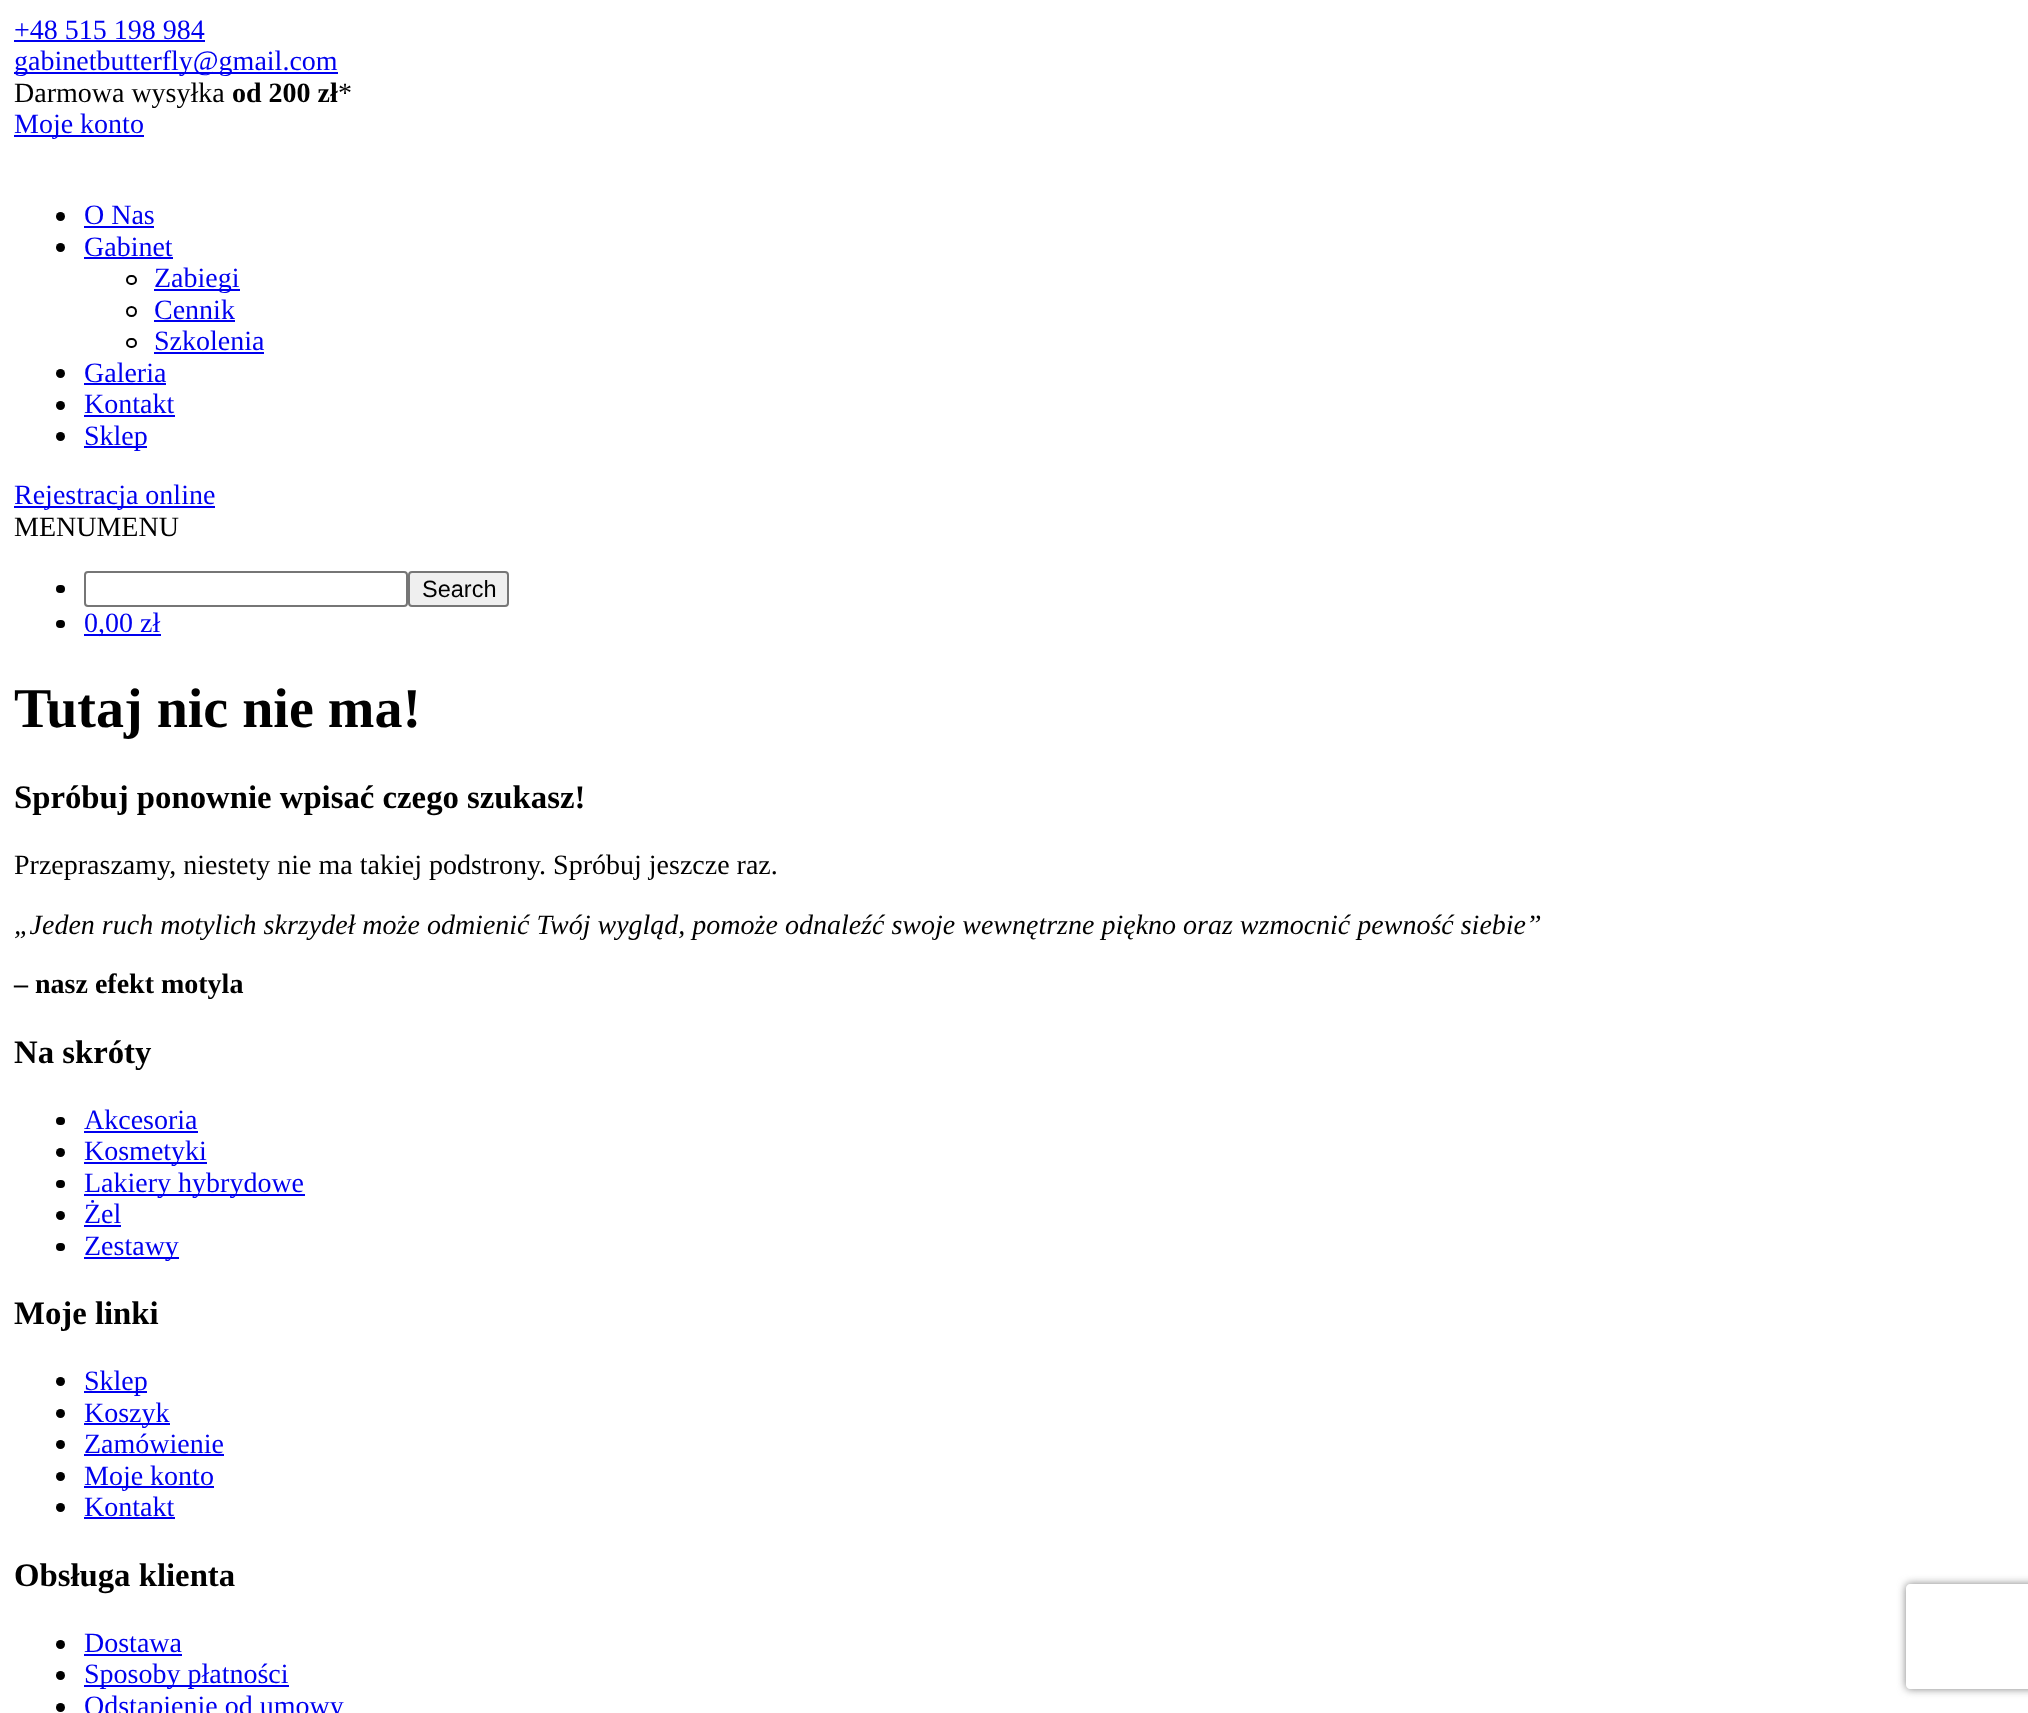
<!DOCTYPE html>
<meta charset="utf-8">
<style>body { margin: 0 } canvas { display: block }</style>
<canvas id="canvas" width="2028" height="1713"></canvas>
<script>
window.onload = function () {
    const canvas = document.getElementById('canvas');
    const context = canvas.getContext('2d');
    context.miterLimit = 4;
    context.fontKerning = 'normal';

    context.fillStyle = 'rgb(255, 255, 255)';
    context.fillRect(0, 0, 2028, 1713);
    context.fillStyle = 'rgb(0, 0, 238)';
    context.fillRect(14, 40, 191, 2);
    context.fillRect(14, 72, 324, 2);
    context.fillRect(14, 135, 130, 2);
    context.fillStyle = 'rgb(0, 0, 0)';
    context.beginPath();
    context.arc(60.5, 216.5, 4.5, 0, 2 * Math.PI);
    context.fill();
    context.fillStyle = 'rgb(0, 0, 238)';
    context.fillRect(84, 226, 70, 2);
    context.fillStyle = 'rgb(0, 0, 0)';
    context.beginPath();
    context.arc(60.5, 247.5, 4.5, 0, 2 * Math.PI);
    context.fill();
    context.fillStyle = 'rgb(0, 0, 238)';
    context.fillRect(84, 257, 89, 2);
    context.beginPath();
    context.roundRect(127, 276, 9, 8, 4);
    context.strokeStyle = 'rgb(0, 0, 0)';
    context.lineWidth = 2;
    context.stroke();
    context.fillRect(154, 289, 86, 2);
    context.beginPath();
    context.arc(131.5, 311.5, 4.5, 0, 2 * Math.PI);
    context.stroke();
    context.fillRect(154, 320, 81, 2);
    context.beginPath();
    context.roundRect(127, 339, 9, 8, 4);
    context.stroke();
    context.fillRect(154, 352, 110, 2);
    context.fillStyle = 'rgb(0, 0, 0)';
    context.beginPath();
    context.arc(60.5, 373.5, 4.5, 0, 2 * Math.PI);
    context.fill();
    context.fillStyle = 'rgb(0, 0, 238)';
    context.fillRect(84, 383, 82, 2);
    context.fillStyle = 'rgb(0, 0, 0)';
    context.beginPath();
    context.arc(60.5, 405.5, 4.5, 0, 2 * Math.PI);
    context.fill();
    context.fillStyle = 'rgb(0, 0, 238)';
    context.fillRect(84, 415, 91, 2);
    context.fillStyle = 'rgb(0, 0, 0)';
    context.beginPath();
    context.arc(60.5, 436.5, 4.5, 0, 2 * Math.PI);
    context.fill();
    context.fillStyle = 'rgb(0, 0, 238)';
    context.fillRect(84, 446, 63, 2);
    context.fillRect(14, 506, 201, 2);
    context.fillStyle = 'rgb(0, 0, 0)';
    context.beginPath();
    context.roundRect(56, 585, 9, 8, 4);
    context.fill();
    context.beginPath();
    context.roundRect(85, 572, 322, 34, 3);
    context.strokeStyle = 'rgb(118, 118, 118)';
    context.stroke();
    context.fillStyle = 'rgb(239, 239, 239)';
    context.beginPath();
    context.roundRect(409, 572, 99, 34, 3);
    context.fill();
    context.stroke();
    context.fillStyle = 'rgb(0, 0, 0)';
    context.beginPath();
    context.roundRect(56, 620, 9, 8, 4);
    context.fill();
    context.fillStyle = 'rgb(0, 0, 238)';
    context.fillRect(84, 634, 77, 2);
    context.fillStyle = 'rgb(0, 0, 0)';
    context.beginPath();
    context.roundRect(56, 1117, 9, 8, 4);
    context.fill();
    context.fillStyle = 'rgb(0, 0, 238)';
    context.fillRect(84, 1131, 114, 2);
    context.fillStyle = 'rgb(0, 0, 0)';
    context.beginPath();
    context.arc(60.5, 1152.5, 4.5, 0, 2 * Math.PI);
    context.fill();
    context.fillStyle = 'rgb(0, 0, 238)';
    context.fillRect(84, 1162, 123, 2);
    context.fillStyle = 'rgb(0, 0, 0)';
    context.beginPath();
    context.roundRect(56, 1180, 9, 8, 4);
    context.fill();
    context.fillStyle = 'rgb(0, 0, 238)';
    context.fillRect(84, 1194, 221, 2);
    context.fillStyle = 'rgb(0, 0, 0)';
    context.beginPath();
    context.arc(60.5, 1215.5, 4.5, 0, 2 * Math.PI);
    context.fill();
    context.fillStyle = 'rgb(0, 0, 238)';
    context.fillRect(84, 1225, 37, 2);
    context.fillStyle = 'rgb(0, 0, 0)';
    context.beginPath();
    context.roundRect(56, 1243, 9, 8, 4);
    context.fill();
    context.fillStyle = 'rgb(0, 0, 238)';
    context.fillRect(84, 1257, 95, 2);
    context.fillStyle = 'rgb(0, 0, 0)';
    context.beginPath();
    context.arc(60.5, 1381.5, 4.5, 0, 2 * Math.PI);
    context.fill();
    context.fillStyle = 'rgb(0, 0, 238)';
    context.fillRect(84, 1391, 63, 2);
    context.fillStyle = 'rgb(0, 0, 0)';
    context.beginPath();
    context.arc(60.5, 1413.5, 4.5, 0, 2 * Math.PI);
    context.fill();
    context.fillStyle = 'rgb(0, 0, 238)';
    context.fillRect(84, 1423, 86, 2);
    context.fillStyle = 'rgb(0, 0, 0)';
    context.beginPath();
    context.arc(60.5, 1444.5, 4.5, 0, 2 * Math.PI);
    context.fill();
    context.fillStyle = 'rgb(0, 0, 238)';
    context.fillRect(84, 1454, 140, 2);
    context.fillStyle = 'rgb(0, 0, 0)';
    context.beginPath();
    context.arc(60.5, 1476.5, 4.5, 0, 2 * Math.PI);
    context.fill();
    context.fillStyle = 'rgb(0, 0, 238)';
    context.fillRect(84, 1486, 130, 2);
    context.fillStyle = 'rgb(0, 0, 0)';
    context.beginPath();
    context.arc(60.5, 1507.5, 4.5, 0, 2 * Math.PI);
    context.fill();
    context.fillStyle = 'rgb(0, 0, 238)';
    context.fillRect(84, 1517, 91, 2);
    context.fillStyle = 'rgb(0, 0, 0)';
    context.beginPath();
    context.arc(60.5, 1644.5, 4.5, 0, 2 * Math.PI);
    context.fill();
    context.fillStyle = 'rgb(0, 0, 238)';
    context.fillRect(84, 1654, 98, 2);
    context.fillStyle = 'rgb(0, 0, 0)';
    context.beginPath();
    context.arc(60.5, 1675.5, 4.5, 0, 2 * Math.PI);
    context.fill();
    context.fillStyle = 'rgb(0, 0, 238)';
    context.fillRect(84, 1685, 205, 2);
    context.fillStyle = 'rgb(0, 0, 0)';
    context.beginPath();
    context.arc(60.5, 1707.5, 4.5, 0, 2 * Math.PI);
    context.fill();
    context.save();
    context.beginPath();
    context.moveTo(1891, 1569);
    context.lineTo(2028, 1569);
    context.lineTo(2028, 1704);
    context.lineTo(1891, 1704);
    context.closePath();
    context.moveTo(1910, 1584);
    context.lineTo(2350, 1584);
    context.bezierCurveTo(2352, 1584, 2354, 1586, 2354, 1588);
    context.lineTo(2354, 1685);
    context.bezierCurveTo(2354, 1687, 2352, 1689, 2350, 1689);
    context.lineTo(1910, 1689);
    context.bezierCurveTo(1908, 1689, 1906, 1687, 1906, 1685);
    context.lineTo(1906, 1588);
    context.bezierCurveTo(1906, 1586, 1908, 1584, 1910, 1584);
    context.closePath();
    context.clip('evenodd');
    context.fillStyle = 'rgb(128, 128, 128)';
    context.filter = 'blur(4.5px)';
    context.beginPath();
    context.roundRect(1906, 1584, 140, 105, 4);
    context.fill();
    context.filter = 'none';
    context.restore();
    context.font = '28px Liberation Serif';
    context.fillStyle = 'rgb(0, 0, 238)';
    context.fillText('+48 515 198 984', 14, 39);
    context.fillText('gabinetbutterfly@gmail.com', 14, 70);
    context.fillStyle = 'rgb(0, 0, 0)';
    context.fillText('Darmowa wysyłka', 14, 102);
    context.font = 'bold 28px Liberation Serif';
    context.fillText('od 200 zł', 232, 102);
    context.font = '28px Liberation Serif';
    context.fillText('*', 338, 102);
    context.fillStyle = 'rgb(0, 0, 238)';
    context.fillText('Moje konto', 14, 133);
    context.fillText('O Nas', 84, 224);
    context.fillText('Gabinet', 84, 256);
    context.fillText('Zabiegi', 154, 287);
    context.fillText('Cennik', 154, 319);
    context.fillText('Szkolenia', 154, 350);
    context.fillText('Galeria', 84, 382);
    context.fillText('Kontakt', 84, 413);
    context.fillText('Sklep', 84, 445);
    context.fillText('Rejestracja online', 14, 504);
    context.fillStyle = 'rgb(0, 0, 0)';
    context.fillText('MENUMENU', 14, 536);
    context.font = '23.5px Liberation Sans';
    context.fillText('Search', 422, 597);
    context.font = '28px Liberation Serif';
    context.fillStyle = 'rgb(0, 0, 238)';
    context.fillText('0,00 zł', 84, 632);
    context.font = 'bold 56px Liberation Serif';
    context.fillStyle = 'rgb(0, 0, 0)';
    context.fillText('Tutaj nic nie ma!', 14, 727);
    context.font = 'bold 32.75px Liberation Serif';
    context.fillText('Spróbuj ponownie wpisać czego szukasz!', 14, 808);
    context.font = '28px Liberation Serif';
    context.fillText('Przepraszamy, niestety nie ma takiej podstrony. Spróbuj jeszcze raz.', 14, 874);
    context.font = 'italic 28px Liberation Serif';
    context.fillText('„Jeden ruch motylich skrzydeł może odmienić Twój wygląd, pomoże odnaleźć swoje wewnętrzne piękno oraz wzmocnić pewność siebie”', 14, 934);
    context.font = 'bold 28px Liberation Serif';
    context.fillText('– nasz efekt motyla', 14, 993);
    context.font = 'bold 32.75px Liberation Serif';
    context.fillText('Na skróty', 14, 1063);
    context.font = '28px Liberation Serif';
    context.fillStyle = 'rgb(0, 0, 238)';
    context.fillText('Akcesoria', 84, 1129);
    context.fillText('Kosmetyki', 84, 1160);
    context.fillText('Lakiery hybrydowe', 84, 1192);
    context.fillText('Żel', 84, 1223);
    context.fillText('Zestawy', 84, 1255);
    context.font = 'bold 32.75px Liberation Serif';
    context.fillStyle = 'rgb(0, 0, 0)';
    context.fillText('Moje linki', 14, 1324);
    context.font = '28px Liberation Serif';
    context.fillStyle = 'rgb(0, 0, 238)';
    context.fillText('Sklep', 84, 1390);
    context.fillText('Koszyk', 84, 1422);
    context.fillText('Zamówienie', 84, 1453);
    context.fillText('Moje konto', 84, 1485);
    context.fillText('Kontakt', 84, 1516);
    context.font = 'bold 32.75px Liberation Serif';
    context.fillStyle = 'rgb(0, 0, 0)';
    context.fillText('Obsługa klienta', 14, 1586);
    context.font = '28px Liberation Serif';
    context.fillStyle = 'rgb(0, 0, 238)';
    context.fillText('Dostawa', 84, 1652);
    context.fillText('Sposoby płatności', 84, 1683);
    context.fillText('Odstąpienie od umowy', 84, 1715);
};
</script>
